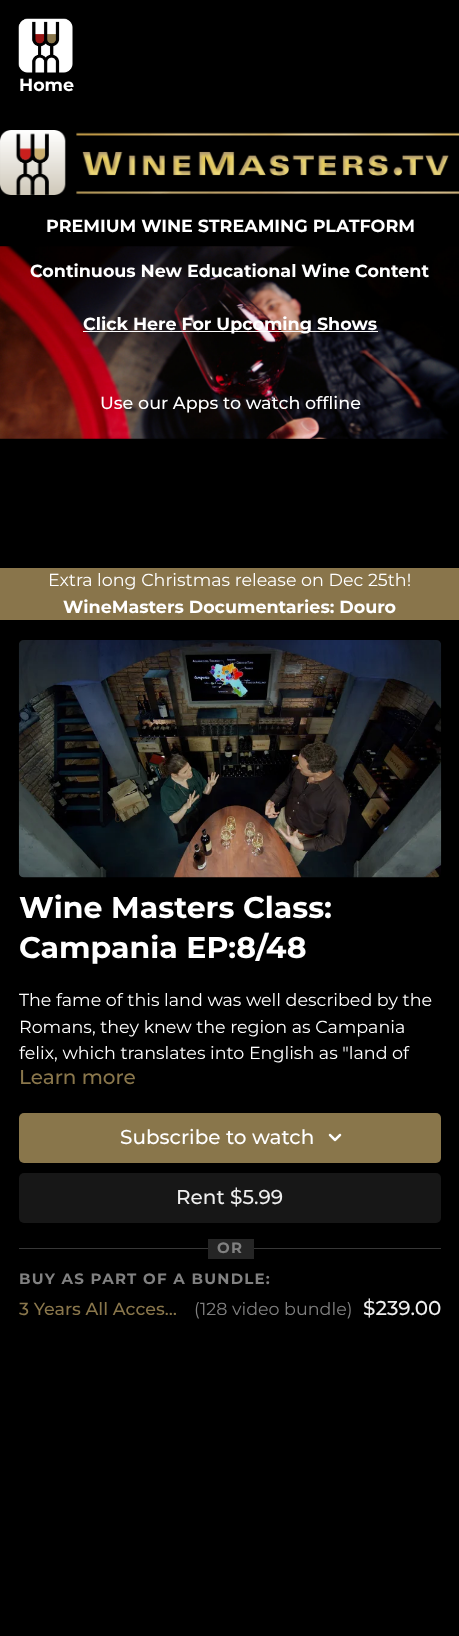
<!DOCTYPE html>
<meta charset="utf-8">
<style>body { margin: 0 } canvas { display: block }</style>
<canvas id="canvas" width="459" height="1636"></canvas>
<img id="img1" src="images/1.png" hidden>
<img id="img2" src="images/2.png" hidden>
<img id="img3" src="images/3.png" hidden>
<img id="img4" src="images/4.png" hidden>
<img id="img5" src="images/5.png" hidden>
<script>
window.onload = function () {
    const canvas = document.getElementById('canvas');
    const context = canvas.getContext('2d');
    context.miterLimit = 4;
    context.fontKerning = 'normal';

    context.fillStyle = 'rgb(0, 0, 0)';
    context.fillRect(0, 0, 459, 1636);
    context.drawImage(document.getElementById('img1'), 18, 18, 55, 55);
    context.drawImage(document.getElementById('img2'), 0, 130, 459, 65);
    context.drawImage(document.getElementById('img3'), 0, 246, 459, 193);
    context.fillStyle = 'rgb(255, 255, 255)';
    context.fillRect(83, 331, 295, 1);
    context.fillStyle = 'rgb(137, 117, 75)';
    context.fillRect(0, 568, 459, 52);
    context.drawImage(document.getElementById('img4'), 18, 640, 424, 238);
    context.fillStyle = 'rgb(137, 118, 75)';
    context.beginPath();
    context.roundRect(19, 1113, 422, 50, 5);
    context.fill();
    context.drawImage(document.getElementById('img5'), 328, 1133, 14, 9);
    context.fillStyle = 'rgb(23, 23, 23)';
    context.beginPath();
    context.roundRect(19, 1173, 422, 50, 5);
    context.fill();
    context.fillStyle = 'rgb(55, 55, 55)';
    context.fillRect(19, 1248, 422, 1);
    context.fillStyle = 'rgb(37, 37, 37)';
    context.fillRect(208, 1239, 46, 20);
    context.font = 'bold 17.5px Montserrat';
    context.fillStyle = 'rgb(255, 255, 255)';
    context.fillText('Home', 19, 91);
    context.fillText('PREMIUM WINE STREAMING PLATFORM', 46, 232);
    context.fillText('Continuous New Educational Wine Content', 30, 277);
    context.fillText('Click Here For Upcoming Shows', 83, 330);
    context.font = '500 17.5px Montserrat';
    context.fillText('Use our Apps to watch offline', 100, 409);
    context.font = '17.5px Montserrat';
    context.fillText('Extra long Christmas release on Dec 25th!', 48, 586);
    context.font = 'bold 17.5px Montserrat';
    context.fillText('WineMasters Documentaries: Douro', 63, 613);
    context.font = 'bold 30px Montserrat';
    context.fillText('Wine Masters Class:', 19, 918);
    context.fillText('Campania EP:8/48', 19, 958);
    context.font = '17.5px Montserrat';
    context.fillText('The fame of this land was well described by the', 19, 1006);
    context.fillText('Romans, they knew the region as Campania', 19, 1033);
    context.fillText('felix, which translates into English as "land of', 19, 1059);
    context.font = '500 20px Montserrat';
    context.fillStyle = 'rgb(137, 118, 75)';
    context.fillText('Learn more', 19, 1084);
    context.fillStyle = 'rgb(255, 255, 255)';
    context.fillText('Subscribe to watch', 120, 1144);
    context.fillStyle = 'rgb(238, 238, 238)';
    context.fillText('Rent $5.99', 176, 1204);
    context.letterSpacing = '1.25px';
    context.font = 'bold 15px Montserrat';
    context.fillStyle = 'rgb(129, 129, 129)';
    context.fillText('OR', 217, 1253);
    context.fillText('BUY AS PART OF A BUNDLE:', 19, 1284);
    context.letterSpacing = '0px';
    context.font = '500 17.5px Montserrat';
    context.fillStyle = 'rgb(137, 118, 75)';
    context.fillText('3 Years All Acces…', 19, 1315);
    context.font = '17.5px Montserrat';
    context.fillStyle = 'rgb(129, 129, 129)';
    context.fillText('(128 video bundle)', 194, 1315);
    context.font = '500 20px Montserrat';
    context.fillStyle = 'rgb(238, 238, 238)';
    context.fillText('$239.00', 363, 1315);
};
</script>
